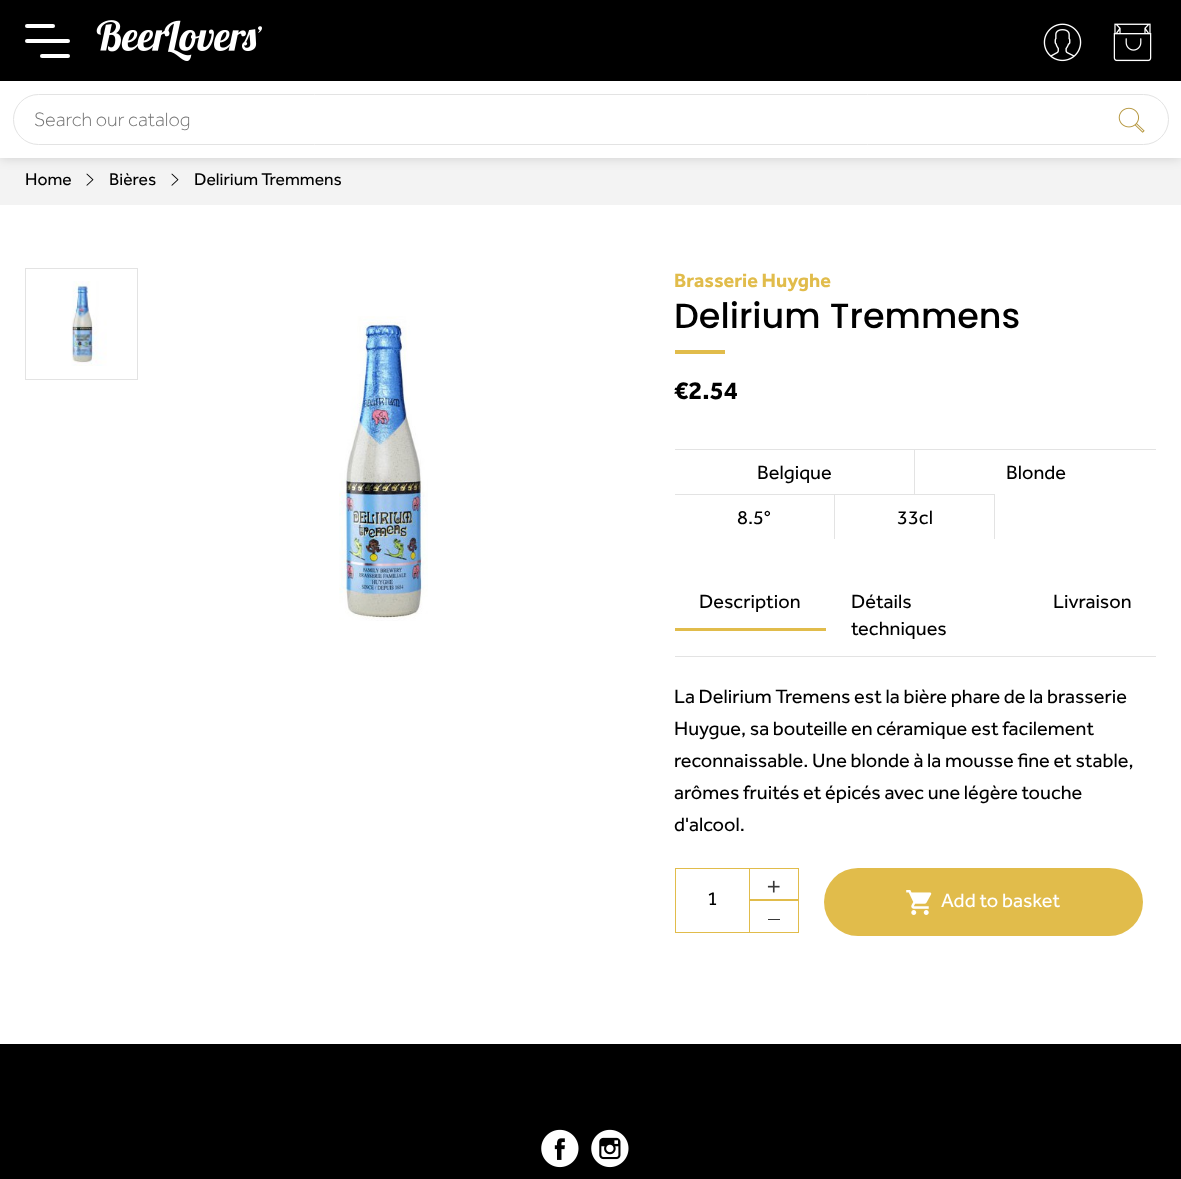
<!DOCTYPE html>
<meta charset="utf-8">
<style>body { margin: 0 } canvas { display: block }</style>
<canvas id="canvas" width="1181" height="1179"></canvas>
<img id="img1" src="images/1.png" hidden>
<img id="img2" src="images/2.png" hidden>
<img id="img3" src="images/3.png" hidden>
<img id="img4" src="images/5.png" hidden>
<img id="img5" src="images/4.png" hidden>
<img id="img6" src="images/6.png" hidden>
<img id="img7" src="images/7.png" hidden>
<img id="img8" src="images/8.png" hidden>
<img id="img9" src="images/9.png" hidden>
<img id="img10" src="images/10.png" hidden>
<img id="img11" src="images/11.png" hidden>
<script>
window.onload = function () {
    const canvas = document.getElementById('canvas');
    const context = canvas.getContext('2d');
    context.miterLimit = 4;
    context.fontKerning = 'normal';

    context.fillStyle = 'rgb(255, 255, 255)';
    context.fillRect(0, 0, 1181, 1179);
    context.fillStyle = 'rgb(0, 0, 0)';
    context.fillRect(0, 0, 1181, 81);
    context.fillStyle = 'rgb(255, 255, 255)';
    context.beginPath();
    context.roundRect(25, 39, 45, 4, 2);
    context.fill();
    context.beginPath();
    context.roundRect(25, 24, 30, 4, 2);
    context.fill();
    context.beginPath();
    context.roundRect(40, 54, 30, 4, 2);
    context.fill();
    context.drawImage(document.getElementById('img1'), 96, 20, 166, 41);
    context.drawImage(document.getElementById('img2'), 1043, 23, 39, 39);
    context.drawImage(document.getElementById('img3'), 1113, 23, 39, 39);
    context.fillStyle = 'rgb(243, 243, 243)';
    context.fillRect(0, 158, 1181, 47);
    context.drawImage(document.getElementById('img4'), 86, 173, 8, 13);
    context.drawImage(document.getElementById('img4'), 171, 173, 8, 13);
    context.fillStyle = 'rgba(0, 0, 0, 0.15)';
    context.filter = 'blur(6px)';
    context.beginPath();
    context.rect(0, 81, 1181, 77);
    context.fill();
    context.filter = 'none';
    context.fillStyle = 'rgb(255, 255, 255)';
    context.fillRect(0, 81, 1181, 77);
    context.beginPath();
    context.roundRect(13.5, 94.5, 1155, 50, 25);
    context.strokeStyle = 'rgb(227, 227, 227)';
    context.stroke();
    context.drawImage(document.getElementById('img5'), 1118, 107, 27, 26);
    context.strokeRect(25.5, 268.5, 112, 111);
    context.drawImage(document.getElementById('img6'), 71, 281, 36, 85);
    context.drawImage(document.getElementById('img7'), 339, 316, 89, 305);
    context.fillStyle = 'rgb(225, 188, 75)';
    context.fillRect(675, 350, 50, 4);
    context.fillStyle = 'rgb(227, 227, 227)';
    context.fillRect(675, 449, 481, 1);
    context.fillRect(914, 449, 1, 45);
    context.fillRect(675, 494, 320, 1);
    context.fillRect(834, 494, 1, 45);
    context.fillRect(994, 494, 1, 45);
    context.fillRect(675, 656, 481, 1);
    context.fillStyle = 'rgb(225, 188, 75)';
    context.fillRect(675, 628, 151, 3);
    context.strokeStyle = 'rgb(225, 188, 75)';
    context.strokeRect(675.5, 868.5, 74, 64);
    context.strokeRect(749.5, 868.5, 49, 31);
    context.drawImage(document.getElementById('img8'), 767, 880, 13, 13);
    context.strokeRect(749.5, 900.5, 49, 32);
    context.fillStyle = 'rgb(57, 57, 57)';
    context.fillRect(768, 919, 12, 1);
    context.fillStyle = 'rgb(225, 188, 75)';
    context.beginPath();
    context.roundRect(824, 868, 319, 68, 34);
    context.fill();
    context.drawImage(document.getElementById('img9'), 906, 890, 26, 25);
    context.fillStyle = 'rgb(0, 0, 0)';
    context.fillRect(0, 1044, 1181, 135);
    context.drawImage(document.getElementById('img10'), 541, 1129, 38, 39);
    context.drawImage(document.getElementById('img11'), 591, 1129, 38, 39);
    context.font = '300 20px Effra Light';
    context.fillStyle = 'rgb(117, 117, 117)';
    context.fillText('Search our catalog', 34, 126);
    context.font = '17.5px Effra';
    context.fillStyle = 'rgb(0, 0, 0)';
    context.fillText('Home', 25, 185);
    context.fillText('Bières', 109, 185);
    context.fillText('Delirium Tremmens', 194, 185);
    context.font = 'bold 20px Effra';
    context.fillStyle = 'rgb(225, 188, 75)';
    context.fillText('Brasserie Huyghe', 674, 287);
    context.font = '500 35px Poppins';
    context.fillStyle = 'rgb(0, 0, 0)';
    context.fillText('Delirium Tremmens', 674, 328);
    context.font = 'bold 26px Effra';
    context.fillText('€2.54', 674, 399);
    context.font = '20px Effra';
    context.fillText('Belgique', 757, 479);
    context.fillText('Blonde', 1006, 479);
    context.fillText('8.5°', 737, 524);
    context.fillText('33cl', 897, 524);
    context.fillText('Description', 699, 608);
    context.fillText('Détails', 851, 608);
    context.fillText('techniques', 851, 635);
    context.fillText('Livraison', 1053, 608);
    context.fillText('La Delirium Tremens est la bière phare de la brasserie', 674, 703);
    context.fillText('Huygue, sa bouteille en céramique est facilement', 674, 735);
    context.fillText('reconnaissable. Une blonde à la mousse fine et stable,', 674, 767);
    context.fillText('arômes fruités et épicés avec une légère touche', 674, 799);
    context.fillText('d\'alcool.', 674, 831);
    context.fillText('1', 707, 905);
    context.letterSpacing = '0.1px';
    context.fillStyle = 'rgb(255, 255, 255)';
    context.fillText('Add to basket', 941, 907);
};
</script>
